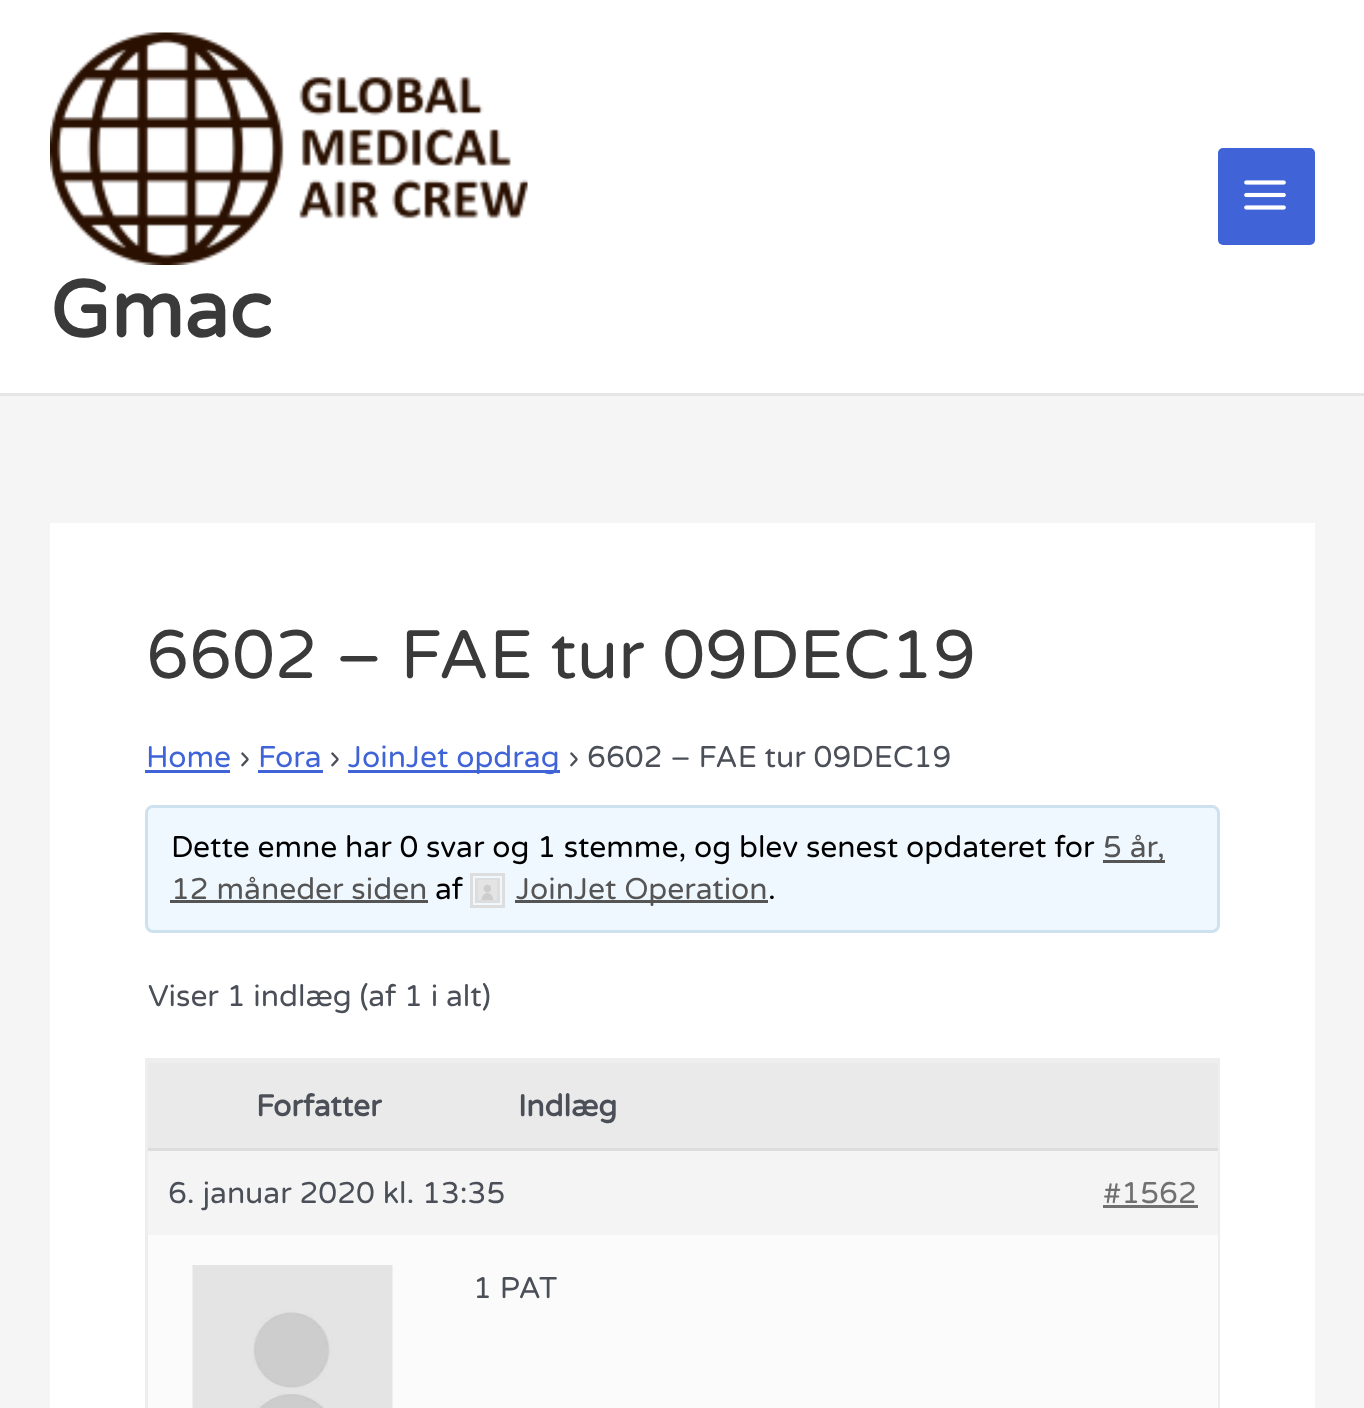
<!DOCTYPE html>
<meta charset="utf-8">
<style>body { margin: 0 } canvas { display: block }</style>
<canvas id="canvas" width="1364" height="1408"></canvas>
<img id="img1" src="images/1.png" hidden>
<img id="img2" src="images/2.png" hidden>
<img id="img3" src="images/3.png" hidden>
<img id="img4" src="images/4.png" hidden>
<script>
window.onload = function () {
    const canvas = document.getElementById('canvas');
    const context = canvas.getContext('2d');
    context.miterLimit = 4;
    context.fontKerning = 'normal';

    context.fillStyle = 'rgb(245, 245, 245)';
    context.fillRect(0, 0, 1364, 1408);
    context.fillStyle = 'rgb(255, 255, 255)';
    context.fillRect(0, 0, 1364, 393);
    context.fillStyle = 'rgb(229, 229, 229)';
    context.fillRect(0, 393, 1364, 3);
    context.fillStyle = 'rgb(64, 100, 215)';
    context.beginPath();
    context.roundRect(1218, 148, 97, 97, 5);
    context.fill();
    context.drawImage(document.getElementById('img1'), 1244, 180, 42, 30);
    context.drawImage(document.getElementById('img2'), 50, 32, 478, 233);
    context.fillStyle = 'rgb(255, 255, 255)';
    context.fillRect(50, 523, 1265, 885);
    context.fillStyle = 'rgb(64, 100, 215)';
    context.fillRect(145, 770, 85, 3);
    context.fillRect(258, 770, 65, 3);
    context.fillRect(348, 770, 212, 3);
    context.fillStyle = 'rgb(240, 248, 255)';
    context.beginPath();
    context.roundRect(146.5, 806.5, 1072, 125, 6.5);
    context.fill();
    context.strokeStyle = 'rgb(206, 225, 239)';
    context.lineWidth = 3;
    context.stroke();
    context.fillStyle = 'rgb(85, 85, 85)';
    context.fillRect(1103, 860, 62, 3);
    context.fillRect(170, 900, 258, 3);
    context.strokeStyle = 'rgb(221, 221, 221)';
    context.strokeRect(471.5, 874.5, 32, 32);
    context.strokeRect(476.5, 879.5, 22, 22);
    context.drawImage(document.getElementById('img3'), 478, 880, 19, 20);
    context.fillRect(515, 900, 253, 3);
    context.strokeStyle = 'rgb(238, 238, 238)';
    context.strokeRect(146.5, 1059.5, 1072, 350);
    context.fillStyle = 'rgb(234, 234, 234)';
    context.fillRect(148, 1063, 1070, 85);
    context.fillStyle = 'rgb(238, 238, 238)';
    context.fillRect(148, 1061, 1070, 2);
    context.fillStyle = 'rgb(244, 244, 244)';
    context.fillRect(148, 1151, 1070, 84);
    context.fillStyle = 'rgb(221, 221, 221)';
    context.fillRect(148, 1148, 1070, 3);
    context.fillStyle = 'rgb(112, 112, 112)';
    context.fillRect(1103, 1205, 95, 3);
    context.fillStyle = 'rgb(251, 251, 251)';
    context.fillRect(148, 1235, 1070, 173);
    context.drawImage(document.getElementById('img4'), 192, 1265, 201, 143);
    context.font = 'bold 80px Varela Round';
    context.fillStyle = 'rgb(58, 58, 58)';
    context.fillText('Gmac', 50, 337);
    context.font = '68.4px Varela Round';
    context.fillText('6602 – FAE tur 09DEC19', 146, 678);
    context.font = '30px Varela Round';
    context.fillStyle = 'rgb(64, 100, 215)';
    context.fillText('Home', 146, 767);
    context.fillStyle = 'rgb(75, 79, 88)';
    context.fillText('›', 239, 767);
    context.fillStyle = 'rgb(64, 100, 215)';
    context.fillText('Fora', 258, 767);
    context.fillStyle = 'rgb(75, 79, 88)';
    context.fillText('›', 329, 767);
    context.fillStyle = 'rgb(64, 100, 215)';
    context.fillText('JoinJet opdrag', 348, 767);
    context.fillStyle = 'rgb(75, 79, 88)';
    context.fillText('› 6602 – FAE tur 09DEC19', 568, 767);
    context.fillStyle = 'rgb(0, 0, 0)';
    context.fillText('Dette emne har 0 svar og 1 stemme, og blev senest opdateret for', 171, 857);
    context.fillStyle = 'rgb(85, 85, 85)';
    context.fillText('5 år,', 1103, 857);
    context.fillText('12 måneder siden', 171, 899);
    context.fillStyle = 'rgb(0, 0, 0)';
    context.fillText('af', 435, 899);
    context.fillStyle = 'rgb(85, 85, 85)';
    context.fillText('JoinJet Operation', 516, 899);
    context.fillStyle = 'rgb(0, 0, 0)';
    context.fillText('.', 768, 899);
    context.fillStyle = 'rgb(75, 79, 88)';
    context.fillText('Viser 1 indlæg (af 1 i alt)', 148, 1006);
    context.font = 'bold 30px Varela Round';
    context.fillText('Forfatter', 256, 1116);
    context.fillText('Indlæg', 518, 1116);
    context.font = '30px Varela Round';
    context.fillText('6. januar 2020 kl. 13:35', 168, 1203);
    context.fillStyle = 'rgb(112, 112, 112)';
    context.fillText('#1562', 1103, 1203);
    context.fillStyle = 'rgb(75, 79, 88)';
    context.fillText('1 PAT', 473, 1298);
};
</script>
